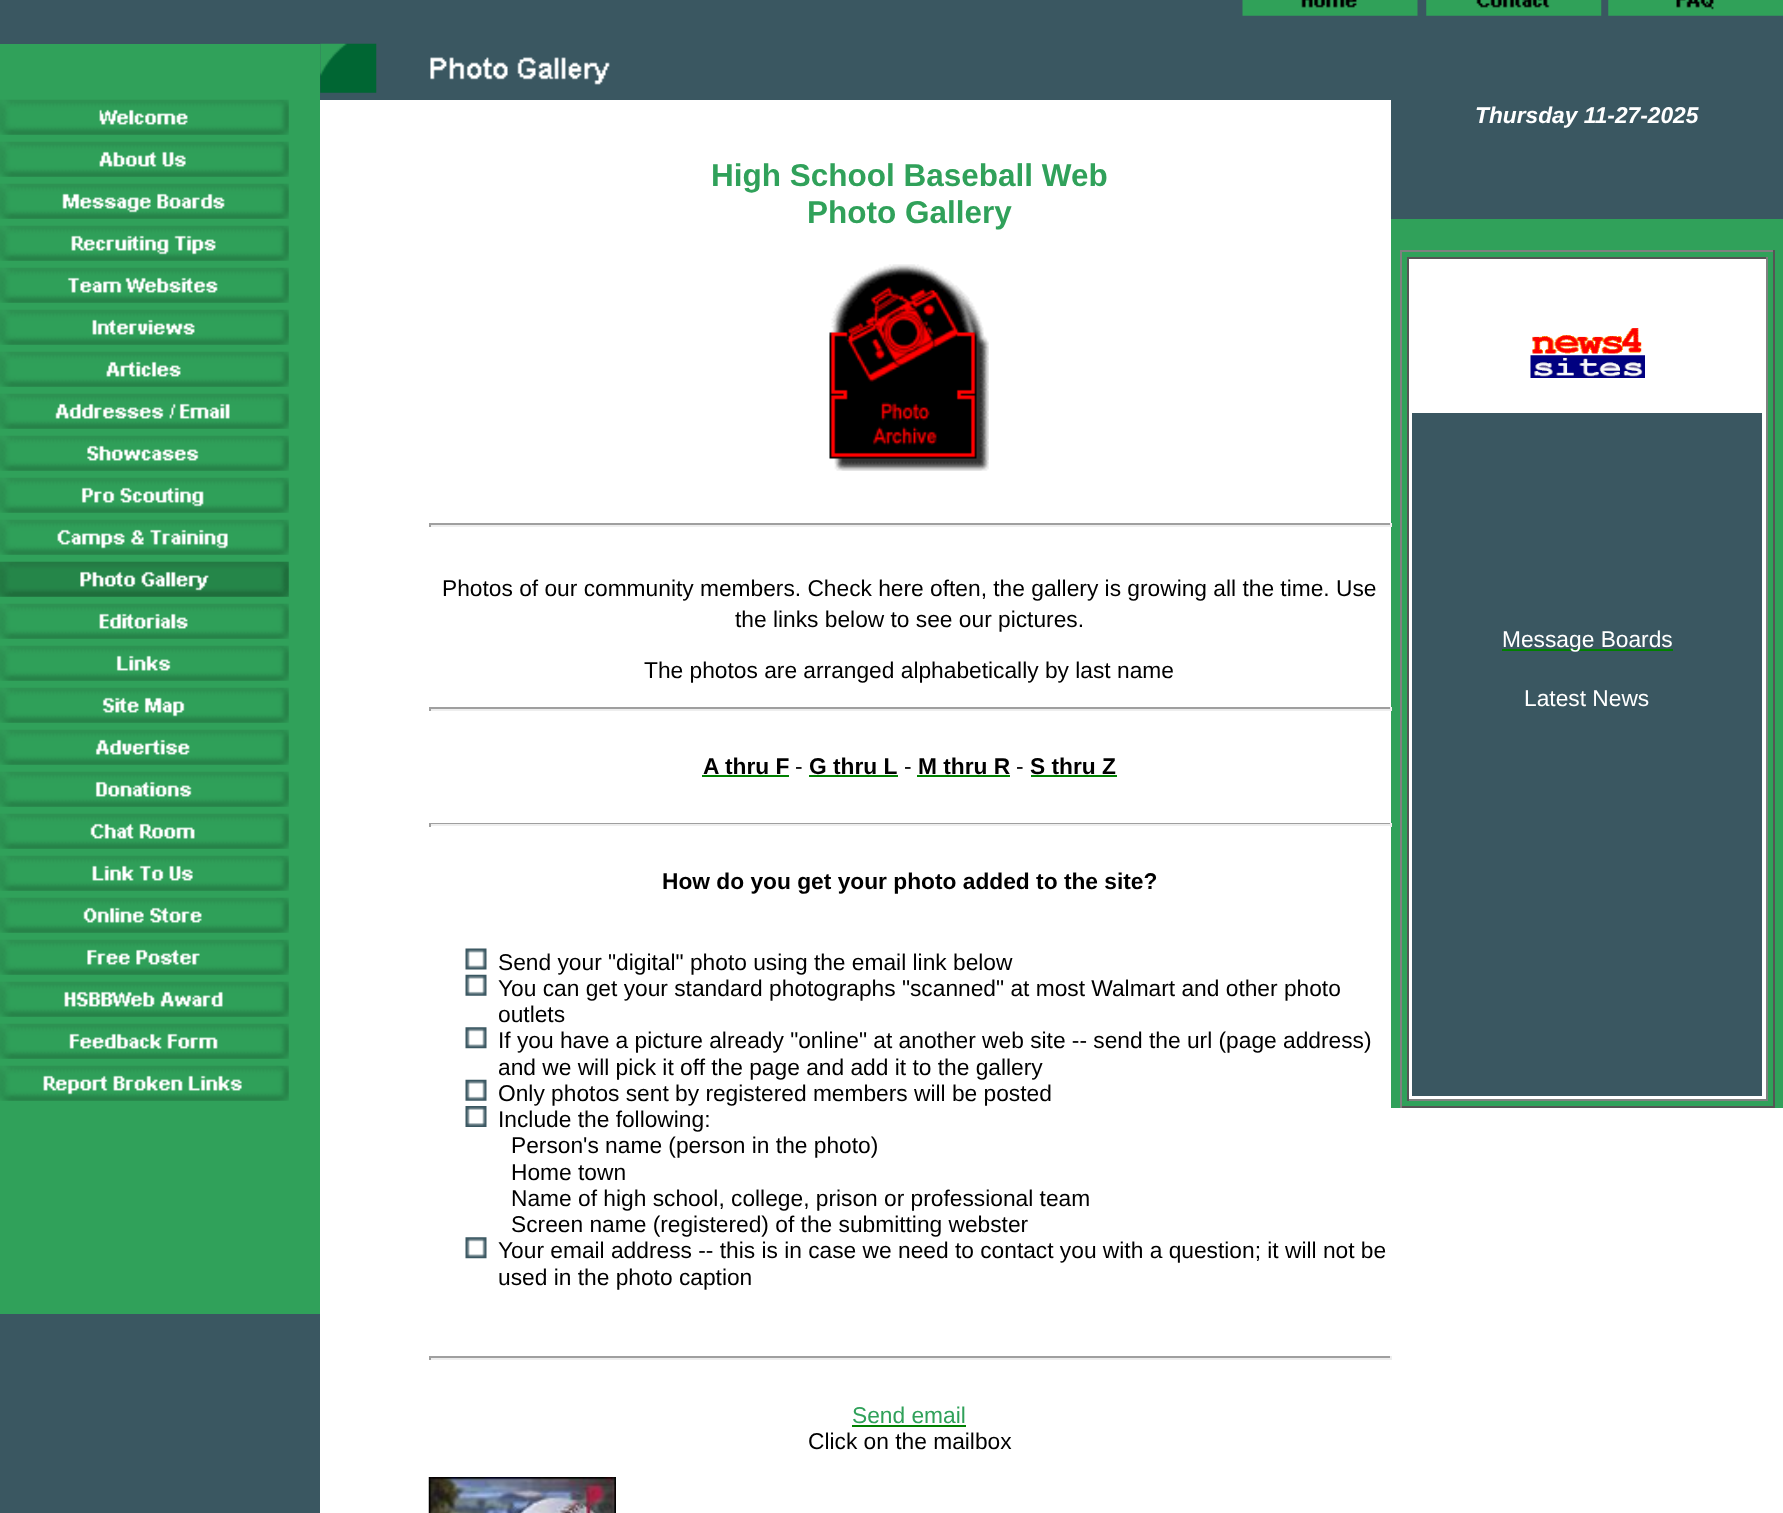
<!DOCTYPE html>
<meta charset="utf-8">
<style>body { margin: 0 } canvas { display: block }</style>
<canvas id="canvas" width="1783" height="1513"></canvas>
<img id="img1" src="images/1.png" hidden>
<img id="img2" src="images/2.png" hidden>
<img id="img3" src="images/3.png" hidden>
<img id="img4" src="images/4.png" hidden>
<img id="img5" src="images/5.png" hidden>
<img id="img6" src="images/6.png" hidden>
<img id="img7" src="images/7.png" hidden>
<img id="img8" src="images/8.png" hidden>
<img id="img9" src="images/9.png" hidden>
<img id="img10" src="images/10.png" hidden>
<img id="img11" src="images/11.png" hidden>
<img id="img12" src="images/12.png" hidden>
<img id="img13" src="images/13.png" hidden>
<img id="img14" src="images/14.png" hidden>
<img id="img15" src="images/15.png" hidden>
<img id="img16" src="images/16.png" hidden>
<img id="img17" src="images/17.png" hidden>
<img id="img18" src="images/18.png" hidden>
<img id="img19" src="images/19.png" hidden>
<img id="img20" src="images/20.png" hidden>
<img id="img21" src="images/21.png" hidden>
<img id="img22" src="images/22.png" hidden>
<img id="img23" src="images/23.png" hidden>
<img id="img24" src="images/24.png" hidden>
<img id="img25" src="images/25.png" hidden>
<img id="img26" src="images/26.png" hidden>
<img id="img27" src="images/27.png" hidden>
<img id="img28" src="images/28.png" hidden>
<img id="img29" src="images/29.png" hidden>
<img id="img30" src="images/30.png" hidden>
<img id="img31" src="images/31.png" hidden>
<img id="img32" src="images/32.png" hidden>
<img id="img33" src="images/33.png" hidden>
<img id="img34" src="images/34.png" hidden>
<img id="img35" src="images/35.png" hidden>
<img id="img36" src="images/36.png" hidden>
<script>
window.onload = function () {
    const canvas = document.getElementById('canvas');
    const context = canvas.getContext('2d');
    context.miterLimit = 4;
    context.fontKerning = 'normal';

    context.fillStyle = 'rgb(255, 255, 255)';
    context.fillRect(0, 0, 1783, 1513);
    context.fillStyle = 'rgb(58, 87, 97)';
    context.fillRect(0, 0, 1783, 44);
    context.drawImage(document.getElementById('img1'), 1242, 0, 176, 16);
    context.drawImage(document.getElementById('img2'), 1426, 0, 176, 16);
    context.drawImage(document.getElementById('img3'), 1608, 0, 175, 16);
    context.fillStyle = 'rgb(48, 161, 90)';
    context.fillRect(0, 44, 320, 1270);
    context.fillStyle = 'rgb(58, 87, 97)';
    context.fillRect(320, 44, 1463, 56);
    context.drawImage(document.getElementById('img4'), 320, 43, 57, 50);
    context.drawImage(document.getElementById('img5'), 430, 57, 180, 28);
    context.drawImage(document.getElementById('img6'), 0, 99, 289, 36);
    context.drawImage(document.getElementById('img7'), 0, 141, 289, 36);
    context.drawImage(document.getElementById('img8'), 0, 183, 289, 36);
    context.drawImage(document.getElementById('img9'), 0, 225, 289, 36);
    context.drawImage(document.getElementById('img10'), 0, 267, 289, 36);
    context.drawImage(document.getElementById('img11'), 0, 309, 289, 36);
    context.drawImage(document.getElementById('img12'), 0, 351, 289, 36);
    context.drawImage(document.getElementById('img13'), 0, 393, 289, 36);
    context.drawImage(document.getElementById('img14'), 0, 435, 289, 36);
    context.drawImage(document.getElementById('img15'), 0, 477, 289, 36);
    context.drawImage(document.getElementById('img16'), 0, 519, 289, 36);
    context.drawImage(document.getElementById('img17'), 0, 561, 289, 36);
    context.drawImage(document.getElementById('img18'), 0, 603, 289, 36);
    context.drawImage(document.getElementById('img19'), 0, 645, 289, 36);
    context.drawImage(document.getElementById('img20'), 0, 687, 289, 36);
    context.drawImage(document.getElementById('img21'), 0, 729, 289, 36);
    context.drawImage(document.getElementById('img22'), 0, 771, 289, 36);
    context.drawImage(document.getElementById('img23'), 0, 813, 289, 36);
    context.drawImage(document.getElementById('img24'), 0, 855, 289, 36);
    context.drawImage(document.getElementById('img25'), 0, 897, 289, 36);
    context.drawImage(document.getElementById('img26'), 0, 939, 289, 36);
    context.drawImage(document.getElementById('img27'), 0, 981, 289, 36);
    context.drawImage(document.getElementById('img28'), 0, 1023, 289, 36);
    context.drawImage(document.getElementById('img29'), 0, 1065, 289, 36);
    context.fillRect(0, 1314, 320, 199);
    context.drawImage(document.getElementById('img30'), 829, 264, 160, 207);
    context.fillStyle = 'rgb(159, 159, 159)';
    context.fillRect(429, 523, 962, 2);
    context.fillStyle = 'rgb(48, 161, 90)';
    context.fillRect(1391, 219, 392, 889);
    context.fillStyle = 'rgb(238, 238, 238)';
    context.fillRect(1390, 523, 2, 4);
    context.fillRect(429, 525, 962, 2);
    context.fillStyle = 'rgb(159, 159, 159)';
    context.fillRect(429, 523, 2, 4);
    context.fillRect(429, 707, 962, 2);
    context.fillStyle = 'rgb(238, 238, 238)';
    context.fillRect(1390, 707, 2, 4);
    context.fillRect(429, 709, 962, 2);
    context.fillStyle = 'rgb(159, 159, 159)';
    context.fillRect(429, 707, 2, 4);
    context.fillStyle = 'rgb(0, 128, 0)';
    context.fillRect(702, 775, 87, 2);
    context.fillRect(809, 775, 89, 2);
    context.fillRect(917, 775, 93, 2);
    context.fillRect(1031, 775, 86, 2);
    context.fillStyle = 'rgb(159, 159, 159)';
    context.fillRect(429, 823, 962, 1);
    context.fillStyle = 'rgb(238, 238, 238)';
    context.fillRect(1390, 823, 2, 4);
    context.fillRect(429, 824, 962, 2);
    context.fillStyle = 'rgb(159, 159, 159)';
    context.fillRect(429, 823, 2, 4);
    context.drawImage(document.getElementById('img31'), 465, 948, 22, 22);
    context.drawImage(document.getElementById('img32'), 465, 974, 22, 22);
    context.drawImage(document.getElementById('img33'), 465, 1027, 22, 22);
    context.drawImage(document.getElementById('img32'), 465, 1079, 22, 22);
    context.drawImage(document.getElementById('img34'), 465, 1106, 22, 21);
    context.drawImage(document.getElementById('img33'), 465, 1237, 22, 22);
    context.fillRect(429, 1356, 962, 2);
    context.fillStyle = 'rgb(238, 238, 238)';
    context.fillRect(1390, 1356, 2, 4);
    context.fillRect(429, 1358, 962, 2);
    context.fillStyle = 'rgb(159, 159, 159)';
    context.fillRect(429, 1356, 2, 4);
    context.fillStyle = 'rgb(0, 128, 0)';
    context.fillRect(852, 1425, 114, 2);
    context.drawImage(document.getElementById('img35'), 428, 1477, 188, 36);
    context.fillStyle = 'rgb(58, 87, 97)';
    context.fillRect(1391, 100, 392, 119);
    context.fillStyle = 'rgb(128, 128, 128)';
    context.fillRect(1400, 250, 375, 2);
    context.fillStyle = 'rgb(85, 85, 85)';
    context.fillRect(1773, 250, 2, 858);
    context.fillRect(1400, 1106, 375, 2);
    context.fillStyle = 'rgb(128, 128, 128)';
    context.fillRect(1400, 250, 2, 858);
    context.fillStyle = 'rgb(255, 255, 255)';
    context.fillRect(1409, 259, 357, 840);
    context.fillStyle = 'rgb(85, 85, 85)';
    context.fillRect(1407, 257, 361, 2);
    context.fillStyle = 'rgb(128, 128, 128)';
    context.fillRect(1766, 257, 2, 844);
    context.fillRect(1407, 1099, 361, 2);
    context.fillStyle = 'rgb(85, 85, 85)';
    context.fillRect(1407, 257, 2, 844);
    context.drawImage(document.getElementById('img36'), 1530, 328, 115, 50);
    context.fillStyle = 'rgb(58, 87, 97)';
    context.fillRect(1412, 413, 350, 683);
    context.fillStyle = 'rgb(0, 128, 0)';
    context.fillRect(1502, 649, 171, 2);
    context.font = 'bold 31.5px Liberation Sans';
    context.fillStyle = 'rgb(48, 161, 90)';
    context.fillText('High School Baseball Web', 711, 186);
    context.fillText('Photo Gallery', 807, 223);
    context.font = '22.75px Liberation Sans';
    context.fillStyle = 'rgb(0, 0, 0)';
    context.fillText('Photos of our community members. Check here often, the gallery is growing all the time. Use', 442, 596);
    context.fillText('the links below to see our pictures.', 735, 627);
    context.fillText('The photos are arranged alphabetically by last name', 644, 678);
    context.font = 'bold 22.75px Liberation Sans';
    context.fillText('A thru F', 703, 774);
    context.font = '22.75px Liberation Sans';
    context.fillText('-', 795, 774);
    context.font = 'bold 22.75px Liberation Sans';
    context.fillText('G thru L', 809, 774);
    context.font = '22.75px Liberation Sans';
    context.fillText('-', 904, 774);
    context.font = 'bold 22.75px Liberation Sans';
    context.fillText('M thru R', 918, 774);
    context.font = '22.75px Liberation Sans';
    context.fillText('-', 1016, 774);
    context.font = 'bold 22.75px Liberation Sans';
    context.fillText('S thru Z', 1030, 774);
    context.fillText('How do you get your photo added to the site?', 662, 889);
    context.font = '22.75px Liberation Sans';
    context.fillText('Send your "digital" photo using the email link below', 498, 970);
    context.fillText('You can get your standard photographs "scanned" at most Walmart and other photo', 498, 996);
    context.fillText('outlets', 498, 1022);
    context.fillText('If you have a picture already "online" at another web site -- send the url (page address)', 498, 1048);
    context.fillText('and we will pick it off the page and add it to the gallery', 498, 1075);
    context.fillText('Only photos sent by registered members will be posted', 498, 1101);
    context.fillText('Include the following:', 498, 1127);
    context.fillText('Person\'s name (person in the photo)', 511, 1153);
    context.fillText('Home town', 511, 1180);
    context.fillText('Name of high school, college, prison or professional team', 511, 1206);
    context.fillText('Screen name (registered) of the submitting webster', 511, 1232);
    context.fillText('Your email address -- this is in case we need to contact you with a question; it will not be', 498, 1258);
    context.fillText('used in the photo caption', 498, 1285);
    context.fillStyle = 'rgb(48, 161, 90)';
    context.fillText('Send email', 852, 1423);
    context.fillStyle = 'rgb(0, 0, 0)';
    context.fillText('Click on the mailbox', 808, 1449);
    context.font = 'italic bold 22.75px Liberation Sans';
    context.fillStyle = 'rgb(255, 255, 255)';
    context.fillText('Thursday 11-27-2025', 1475, 123);
    context.font = '22.75px Liberation Sans';
    context.fillText('Message Boards', 1502, 647);
    context.fillText('Latest News', 1524, 706);
};
</script>
